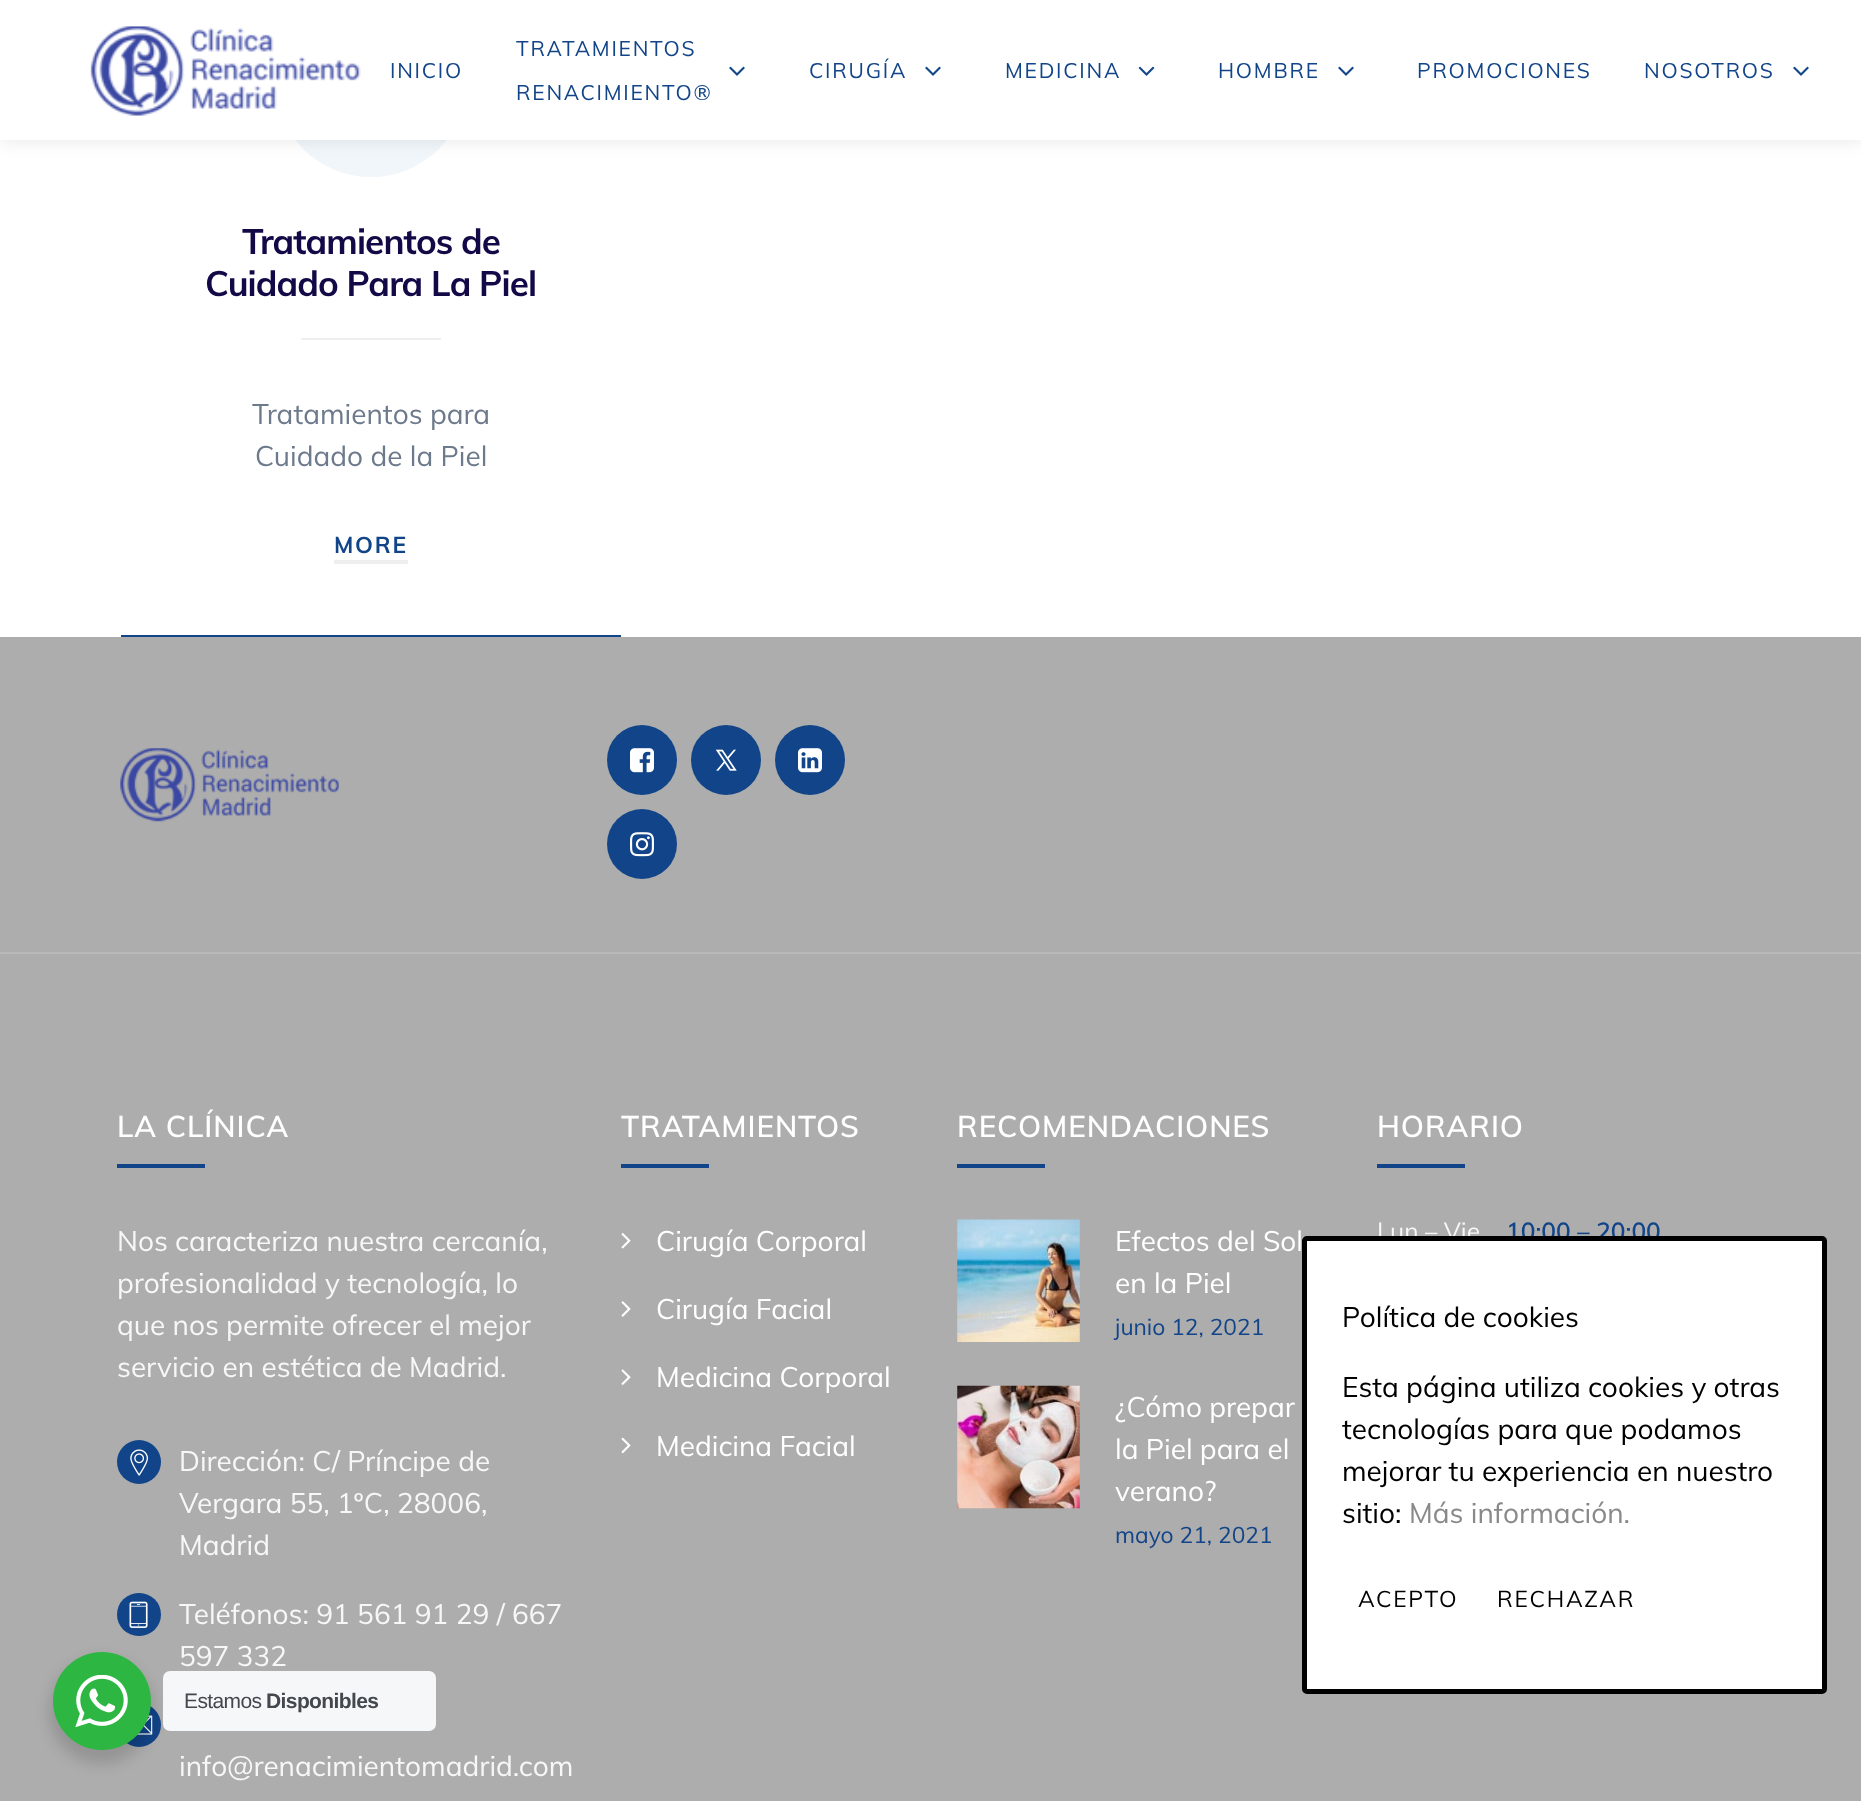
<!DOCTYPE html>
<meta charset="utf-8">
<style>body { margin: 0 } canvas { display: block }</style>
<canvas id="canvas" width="1861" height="1801"></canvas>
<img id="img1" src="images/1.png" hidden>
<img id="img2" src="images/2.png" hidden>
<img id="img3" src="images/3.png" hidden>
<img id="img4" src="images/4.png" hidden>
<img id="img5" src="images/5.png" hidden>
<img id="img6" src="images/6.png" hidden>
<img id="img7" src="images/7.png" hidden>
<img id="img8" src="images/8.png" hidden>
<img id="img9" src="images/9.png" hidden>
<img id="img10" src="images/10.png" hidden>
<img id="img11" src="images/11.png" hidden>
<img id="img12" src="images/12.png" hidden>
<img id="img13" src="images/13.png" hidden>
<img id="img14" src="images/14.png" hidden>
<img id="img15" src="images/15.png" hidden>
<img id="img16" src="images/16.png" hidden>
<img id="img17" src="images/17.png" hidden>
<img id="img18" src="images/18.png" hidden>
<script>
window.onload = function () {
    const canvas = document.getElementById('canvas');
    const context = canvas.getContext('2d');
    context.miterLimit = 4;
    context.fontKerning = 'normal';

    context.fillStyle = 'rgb(255, 255, 255)';
    context.fillRect(0, 0, 1861, 1801);
    context.fillStyle = 'rgb(241, 246, 251)';
    context.beginPath();
    context.roundRect(275, -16, 192, 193, 96);
    context.fill();
    context.fillStyle = 'rgba(0, 0, 0, 0.1)';
    context.filter = 'blur(9px)';
    context.beginPath();
    context.rect(0, 0, 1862, 140);
    context.fill();
    context.filter = 'none';
    context.fillStyle = 'rgb(255, 255, 255)';
    context.fillRect(0, 0, 1861, 140);
    context.drawImage(document.getElementById('img1'), 90, 26, 271, 90);
    context.drawImage(document.getElementById('img2'), 729, 66, 16, 10);
    context.drawImage(document.getElementById('img2'), 925, 66, 16, 10);
    context.drawImage(document.getElementById('img3'), 1138, 66, 17, 10);
    context.drawImage(document.getElementById('img2'), 1338, 66, 16, 10);
    context.drawImage(document.getElementById('img2'), 1793, 66, 16, 10);
    context.fillStyle = 'rgb(17, 68, 136)';
    context.fillRect(121, 635, 500, 2);
    context.fillStyle = 'rgb(239, 239, 239)';
    context.fillRect(301, 338, 140, 2);
    context.fillStyle = 'rgb(238, 238, 238)';
    context.fillRect(334, 560, 74, 4);
    context.fillStyle = 'rgb(173, 173, 173)';
    context.fillRect(0, 637, 1861, 1164);
    context.fillStyle = 'rgb(185, 185, 185)';
    context.fillRect(0, 952, 1861, 2);
    context.drawImage(document.getElementById('img4'), 120, 748, 219, 74);
    context.fillStyle = 'rgb(17, 68, 136)';
    context.beginPath();
    context.arc(642, 760, 35, 0, 2 * Math.PI);
    context.fill();
    context.drawImage(document.getElementById('img5'), 630, 748, 24, 25);
    context.beginPath();
    context.arc(726, 760, 35, 0, 2 * Math.PI);
    context.fill();
    context.drawImage(document.getElementById('img6'), 715, 749, 22, 22);
    context.beginPath();
    context.arc(810, 760, 35, 0, 2 * Math.PI);
    context.fill();
    context.drawImage(document.getElementById('img7'), 798, 748, 24, 25);
    context.beginPath();
    context.arc(642, 844, 35, 0, 2 * Math.PI);
    context.fill();
    context.drawImage(document.getElementById('img8'), 630, 832, 24, 25);
    context.fillRect(117, 1164, 88, 4);
    context.beginPath();
    context.arc(139, 1462, 22, 0, 2 * Math.PI);
    context.fill();
    context.drawImage(document.getElementById('img9'), 130, 1449, 18, 27);
    context.beginPath();
    context.roundRect(117, 1593, 44, 43, 21.5);
    context.fill();
    context.drawImage(document.getElementById('img10'), 129, 1601, 19, 27);
    context.beginPath();
    context.arc(139, 1725, 22, 0, 2 * Math.PI);
    context.fill();
    context.drawImage(document.getElementById('img11'), 137, 1715, 16, 20);
    context.fillRect(621, 1164, 88, 4);
    context.drawImage(document.getElementById('img12'), 621, 1233, 10, 16);
    context.drawImage(document.getElementById('img13'), 621, 1301, 10, 16);
    context.drawImage(document.getElementById('img14'), 621, 1369, 10, 16);
    context.drawImage(document.getElementById('img15'), 621, 1437, 10, 17);
    context.fillRect(957, 1164, 88, 4);
    context.drawImage(document.getElementById('img16'), 957, 1219, 123, 123);
    context.drawImage(document.getElementById('img17'), 957, 1385, 123, 124);
    context.fillRect(1377, 1164, 88, 4);
    context.fillStyle = 'rgba(0, 0, 0, 0.14)';
    context.filter = 'blur(7px)';
    context.beginPath();
    context.roundRect(49, 1659, 105, 105, 52.5);
    context.fill();
    context.filter = 'none';
    context.fillStyle = 'rgb(45, 183, 66)';
    context.beginPath();
    context.arc(102, 1701, 49, 0, 2 * Math.PI);
    context.fill();
    context.drawImage(document.getElementById('img18'), 75, 1675, 53, 52);
    context.fillStyle = 'rgb(245, 247, 249)';
    context.beginPath();
    context.roundRect(163, 1671, 273, 60, 7);
    context.fill();
    context.letterSpacing = '1.75px';
    context.font = '21px Muli';
    context.fillStyle = 'rgb(17, 68, 136)';
    context.fillText('INICIO', 390, 78);
    context.fillText('TRATAMIENTOS', 516, 56);
    context.fillText('RENACIMIENTO®', 516, 100);
    context.fillText('CIRUGÍA', 809, 78);
    context.fillText('MEDICINA', 1005, 78);
    context.fillText('HOMBRE', 1218, 78);
    context.fillText('PROMOCIONES', 1417, 78);
    context.fillText('NOSOTROS', 1644, 78);
    context.letterSpacing = '-0.9px';
    context.font = 'bold 35px Muli';
    context.fillStyle = 'rgb(19, 9, 71)';
    context.fillText('Tratamientos de', 242, 254);
    context.fillText('Cuidado Para La Piel', 205, 296);
    context.letterSpacing = '0px';
    context.font = '28px Muli';
    context.fillStyle = 'rgb(109, 122, 140)';
    context.fillText('Tratamientos para', 252, 424);
    context.fillText('Cuidado de la Piel', 255, 466);
    context.letterSpacing = '1.75px';
    context.font = 'bold 22.75px Muli';
    context.fillStyle = 'rgb(17, 68, 136)';
    context.fillText('MORE', 334, 553);
    context.letterSpacing = '0.9px';
    context.font = '600 29.75px Muli';
    context.fillStyle = 'rgb(255, 255, 255)';
    context.fillText('LA CLÍNICA', 117, 1137);
    context.letterSpacing = '0px';
    context.font = '28px Muli';
    context.fillStyle = 'rgb(247, 247, 247)';
    context.fillText('Nos caracteriza nuestra cercanía,', 117, 1251);
    context.fillText('profesionalidad y tecnología, lo', 117, 1293);
    context.fillText('que nos permite ofrecer el mejor', 117, 1335);
    context.fillText('servicio en estética de Madrid.', 117, 1377);
    context.fillText('Dirección: C/ Príncipe de', 179, 1471);
    context.fillText('Vergara 55, 1ºC, 28006,', 179, 1513);
    context.fillText('Madrid', 179, 1555);
    context.fillText('Teléfonos: 91 561 91 29 / 667', 179, 1624);
    context.fillText('597 332', 179, 1666);
    context.fillText('info@renacimientomadrid.com', 179, 1776);
    context.letterSpacing = '0.9px';
    context.font = '600 29.75px Muli';
    context.fillStyle = 'rgb(255, 255, 255)';
    context.fillText('TRATAMIENTOS', 621, 1137);
    context.letterSpacing = '0px';
    context.font = '28px Muli';
    context.fillText('Cirugía Corporal', 656, 1251);
    context.fillText('Cirugía Facial', 656, 1319);
    context.fillText('Medicina Corporal', 656, 1387);
    context.fillText('Medicina Facial', 656, 1456);
    context.letterSpacing = '0.9px';
    context.font = '600 29.75px Muli';
    context.fillText('RECOMENDACIONES', 957, 1137);
    context.letterSpacing = '0px';
    context.font = '28px Muli';
    context.fillText('Efectos del Sol', 1115, 1251);
    context.fillText('en la Piel', 1115, 1293);
    context.font = '22.75px Muli';
    context.fillStyle = 'rgb(17, 68, 136)';
    context.fillText('junio 12, 2021', 1115, 1335);
    context.font = '28px Muli';
    context.fillStyle = 'rgb(255, 255, 255)';
    context.fillText('¿Cómo prepar', 1115, 1417);
    context.fillText('la Piel para el', 1115, 1459);
    context.fillText('verano?', 1115, 1501);
    context.font = '22.75px Muli';
    context.fillStyle = 'rgb(17, 68, 136)';
    context.fillText('mayo 21, 2021', 1115, 1543);
    context.letterSpacing = '0.9px';
    context.font = '600 29.75px Muli';
    context.fillStyle = 'rgb(255, 255, 255)';
    context.fillText('HORARIO', 1377, 1137);
    context.letterSpacing = '0px';
    context.font = '24.5px Muli';
    context.fillStyle = 'rgb(247, 247, 247)';
    context.fillText('Lun – Vie', 1377, 1240);
    context.font = '600 24.5px Muli';
    context.fillStyle = 'rgb(17, 68, 136)';
    context.fillText('10:00 – 20:00', 1506, 1240);
    context.fillStyle = 'rgb(255, 255, 255)';
    context.beginPath();
    context.roundRect(1304.5, 1238.5, 520, 453, 2.5);
    context.fill();
    context.strokeStyle = 'rgb(0, 0, 0)';
    context.lineWidth = 5;
    context.stroke();
    context.font = '28px Muli';
    context.fillStyle = 'rgb(0, 0, 0)';
    context.fillText('Política de cookies', 1342, 1327);
    context.fillText('Esta página utiliza cookies y otras', 1342, 1397);
    context.fillText('tecnologías para que podamos', 1342, 1439);
    context.fillText('mejorar tu experiencia en nuestro', 1342, 1481);
    context.fillText('sitio:', 1342, 1523);
    context.fillStyle = 'rgb(137, 137, 137)';
    context.fillText('Más información.', 1409, 1523);
    context.letterSpacing = '1.75px';
    context.font = '22.75px Muli';
    context.fillStyle = 'rgb(0, 0, 0)';
    context.fillText('ACEPTO', 1358, 1607);
    context.fillText('RECHAZAR', 1497, 1607);
    context.letterSpacing = '-0.6px';
    context.font = '21px Liberation Sans';
    context.fillStyle = 'rgb(67, 71, 78)';
    context.fillText('Estamos', 184, 1708);
    context.font = 'bold 21px Liberation Sans';
    context.fillText('Disponibles', 266, 1708);
};
</script>
